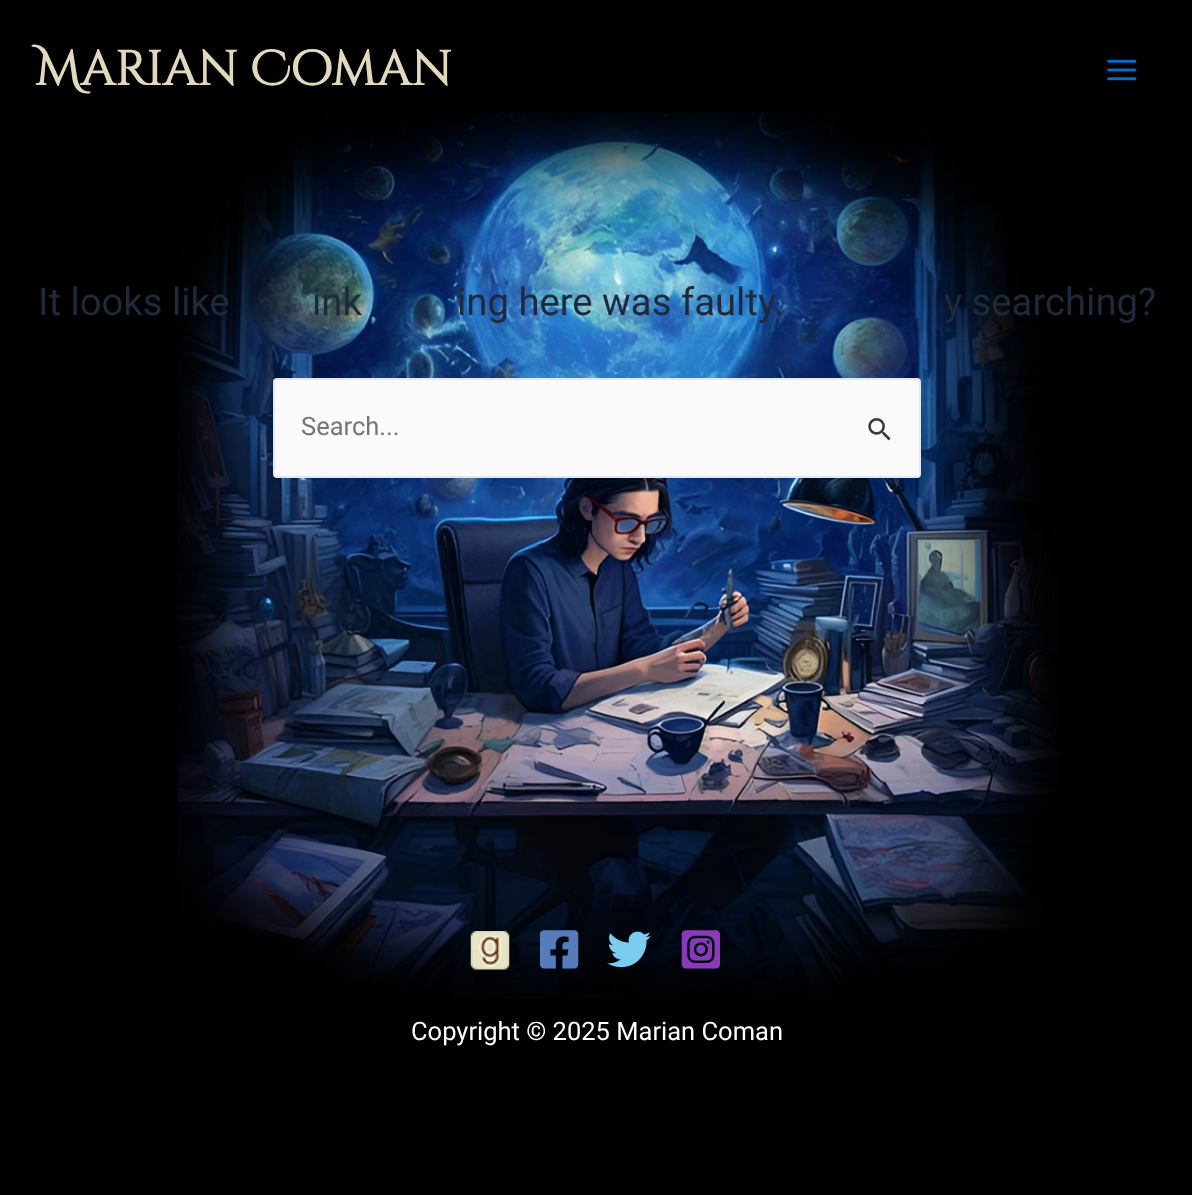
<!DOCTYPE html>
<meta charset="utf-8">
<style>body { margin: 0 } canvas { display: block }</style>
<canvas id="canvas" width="1192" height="1195"></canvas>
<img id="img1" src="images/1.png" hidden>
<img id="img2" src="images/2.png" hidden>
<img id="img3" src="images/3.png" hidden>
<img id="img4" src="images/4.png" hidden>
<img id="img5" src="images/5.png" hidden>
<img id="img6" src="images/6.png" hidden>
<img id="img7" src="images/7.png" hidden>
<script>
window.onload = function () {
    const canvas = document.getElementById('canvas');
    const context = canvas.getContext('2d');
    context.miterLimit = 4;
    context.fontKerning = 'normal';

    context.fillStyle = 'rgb(0, 0, 0)';
    context.fillRect(0, 0, 1192, 1195);
    context.drawImage(document.getElementById('img1'), 177, 111, 884, 888);
    context.drawImage(document.getElementById('img2'), 1107, 59, 30, 22);
    context.fillStyle = 'rgb(250, 250, 250)';
    context.beginPath();
    context.roundRect(274, 379, 646, 98, 3);
    context.fill();
    context.strokeStyle = 'rgb(226, 232, 240)';
    context.lineWidth = 2;
    context.stroke();
    context.drawImage(document.getElementById('img3'), 868, 418, 23, 23);
    context.drawImage(document.getElementById('img4'), 470, 931, 40, 39);
    context.drawImage(document.getElementById('img5'), 540, 930, 39, 39);
    context.drawImage(document.getElementById('img6'), 607, 931, 44, 37);
    context.drawImage(document.getElementById('img7'), 681, 930, 39, 39);
    context.font = 'bold 48.5px Cinzel Decorative';
    context.fillStyle = 'rgb(226, 217, 188)';
    context.fillText('Marian Coman', 35, 85);
    context.font = '38.25px Roboto';
    context.fillStyle = 'rgb(30, 41, 59)';
    context.fillText('It looks like', 38, 315);
    context.fillText('ink', 312, 315);
    context.fillText('ing here was faulty.', 457, 315);
    context.fillText('y searching?', 944, 315);
    context.font = '25.5px Roboto';
    context.fillStyle = 'rgb(117, 117, 117)';
    context.fillText('Search...', 301, 435);
    context.fillStyle = 'rgb(255, 255, 255)';
    context.fillText('Copyright © 2025 Marian Coman', 411, 1040);
};
</script>
